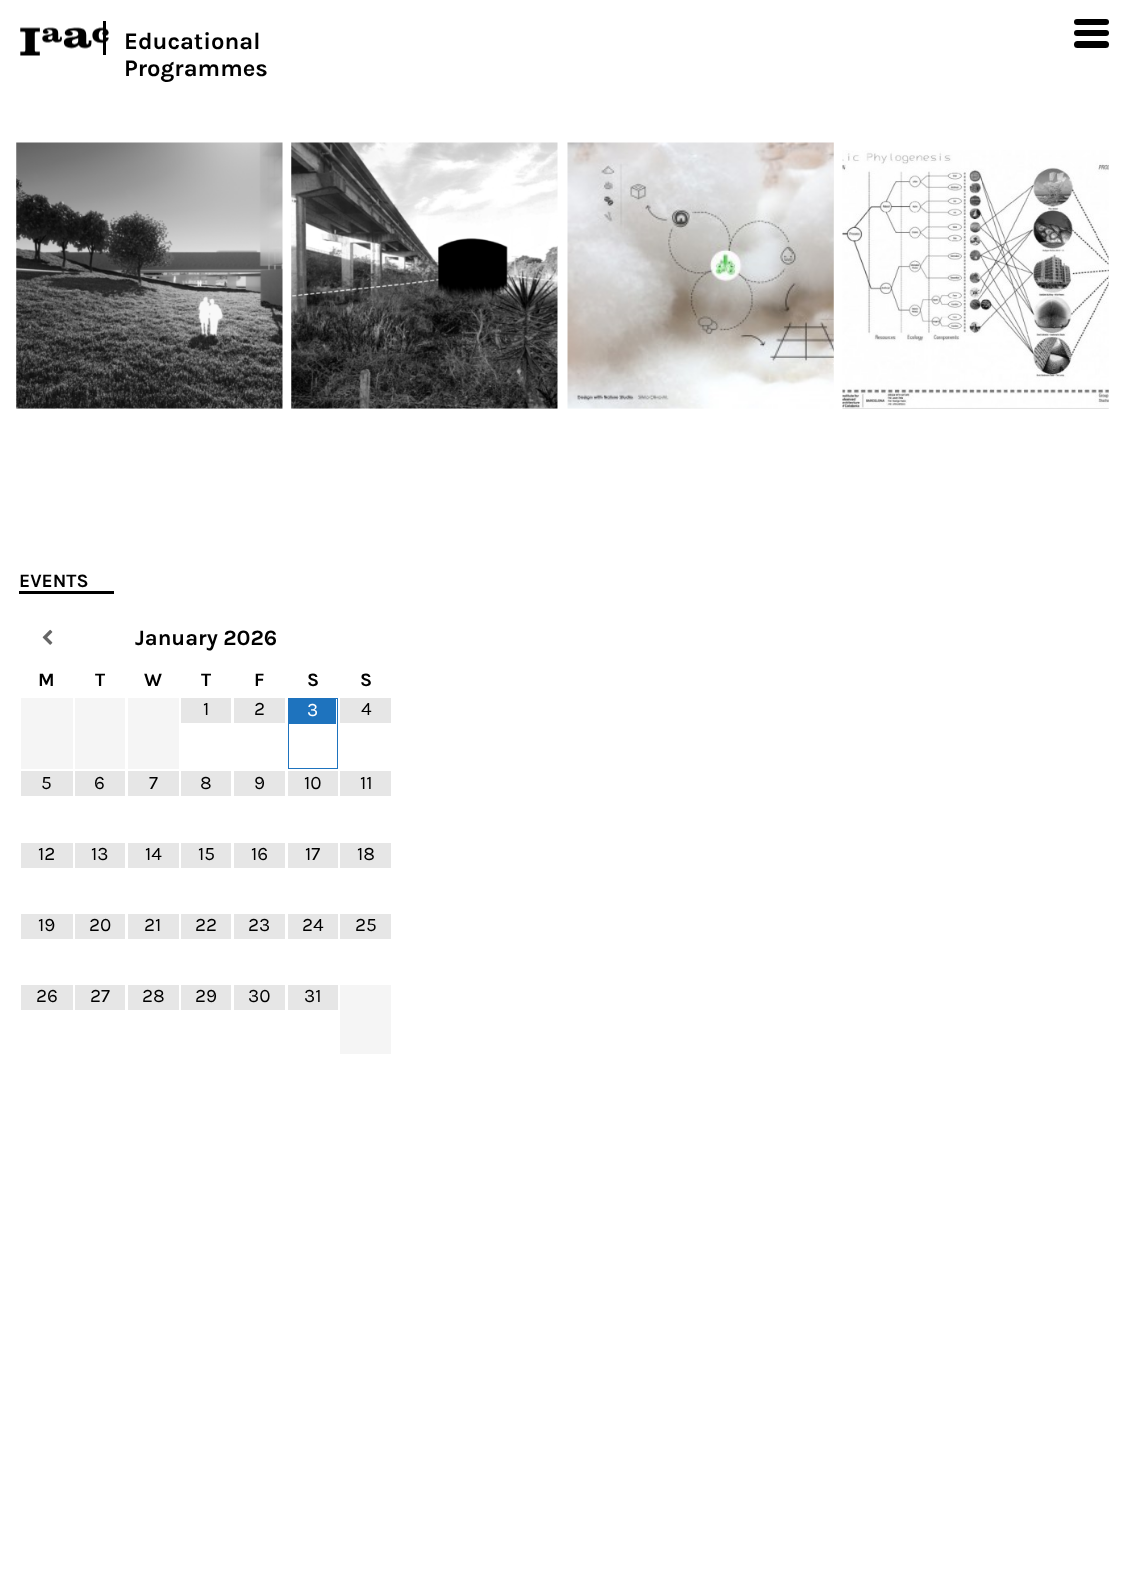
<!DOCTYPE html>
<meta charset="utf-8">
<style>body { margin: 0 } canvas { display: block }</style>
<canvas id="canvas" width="1126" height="1595"></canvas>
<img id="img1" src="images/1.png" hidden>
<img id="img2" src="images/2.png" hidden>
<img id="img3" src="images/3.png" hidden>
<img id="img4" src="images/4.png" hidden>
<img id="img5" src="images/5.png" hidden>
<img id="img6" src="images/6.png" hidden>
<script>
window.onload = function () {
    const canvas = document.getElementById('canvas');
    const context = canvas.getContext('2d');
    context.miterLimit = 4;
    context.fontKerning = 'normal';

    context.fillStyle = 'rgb(255, 255, 255)';
    context.fillRect(0, 0, 1126, 1595);
    context.drawImage(document.getElementById('img1'), 20, 27, 89, 29);
    context.fillStyle = 'rgb(0, 0, 0)';
    context.fillRect(103, 21, 3, 34);
    context.beginPath();
    context.roundRect(1074, 19, 35, 6, 3);
    context.fill();
    context.beginPath();
    context.roundRect(1074, 30, 35, 6, 3);
    context.fill();
    context.beginPath();
    context.roundRect(1074, 41, 35, 7, 3.5);
    context.fill();
    context.drawImage(document.getElementById('img2'), 16, 142, 267, 267);
    context.drawImage(document.getElementById('img3'), 291, 142, 267, 267);
    context.drawImage(document.getElementById('img4'), 567, 142, 267, 267);
    context.drawImage(document.getElementById('img5'), 842, 150, 267, 259);
    context.fillRect(19, 591, 95, 3);
    context.drawImage(document.getElementById('img6'), 42, 629, 11, 16);
    context.fillStyle = 'rgb(245, 245, 245)';
    context.fillRect(21, 698, 52, 71);
    context.fillRect(75, 698, 50, 71);
    context.fillRect(128, 698, 51, 71);
    context.fillStyle = 'rgb(230, 230, 230)';
    context.fillRect(181, 698, 50, 25);
    context.fillRect(234, 698, 51, 25);
    context.strokeStyle = 'rgb(30, 115, 190)';
    context.strokeRect(288.5, 698.5, 49, 70);
    context.fillStyle = 'rgb(30, 115, 190)';
    context.fillRect(289, 699, 47, 25);
    context.fillStyle = 'rgb(230, 230, 230)';
    context.fillRect(340, 698, 51, 25);
    context.fillRect(21, 771, 52, 25);
    context.fillRect(75, 771, 50, 25);
    context.fillRect(128, 771, 51, 25);
    context.fillRect(181, 771, 50, 25);
    context.fillRect(234, 771, 51, 25);
    context.fillRect(288, 771, 50, 25);
    context.fillRect(340, 771, 51, 25);
    context.fillRect(21, 843, 52, 25);
    context.fillRect(75, 843, 50, 25);
    context.fillRect(128, 843, 51, 25);
    context.fillRect(181, 843, 50, 25);
    context.fillRect(234, 843, 51, 25);
    context.fillRect(288, 843, 50, 25);
    context.fillRect(340, 843, 51, 25);
    context.fillRect(21, 914, 52, 25);
    context.fillRect(75, 914, 50, 25);
    context.fillRect(128, 914, 51, 25);
    context.fillRect(181, 914, 50, 25);
    context.fillRect(234, 914, 51, 25);
    context.fillRect(288, 914, 50, 25);
    context.fillRect(340, 914, 51, 25);
    context.fillRect(21, 985, 52, 25);
    context.fillRect(75, 985, 50, 25);
    context.fillRect(128, 985, 51, 25);
    context.fillRect(181, 985, 50, 25);
    context.fillRect(234, 985, 51, 25);
    context.fillRect(288, 985, 50, 25);
    context.fillStyle = 'rgb(245, 245, 245)';
    context.fillRect(340, 985, 51, 69);
    context.font = 'bold 23.75px Karla';
    context.fillStyle = 'rgb(0, 0, 0)';
    context.fillText('Educational', 124, 49);
    context.fillText('Programmes', 124, 76);
    context.font = 'bold 19px Karla';
    context.fillText('EVENTS', 19, 587);
    context.font = 'bold 22px Karla';
    context.fillText('January 2026', 135, 645);
    context.font = 'bold 19px Karla';
    context.fillText('M', 38, 686);
    context.fillText('T', 95, 686);
    context.fillText('W', 144, 686);
    context.fillText('T', 201, 686);
    context.fillText('F', 254, 686);
    context.fillText('S', 307, 686);
    context.fillText('S', 360, 686);
    context.font = '19px Karla';
    context.fillText('1', 203, 715);
    context.fillText('2', 254, 715);
    context.fillStyle = 'rgb(255, 255, 255)';
    context.fillText('3', 307, 716);
    context.fillStyle = 'rgb(0, 0, 0)';
    context.fillText('4', 361, 715);
    context.fillText('5', 41, 789);
    context.fillText('6', 94, 789);
    context.fillText('7', 149, 789);
    context.fillText('8', 200, 789);
    context.fillText('9', 254, 789);
    context.fillText('10', 304, 789);
    context.fillText('11', 360, 789);
    context.fillText('12', 38, 860);
    context.fillText('13', 91, 860);
    context.fillText('14', 145, 860);
    context.fillText('15', 198, 860);
    context.fillText('16', 251, 860);
    context.fillText('17', 305, 860);
    context.fillText('18', 357, 860);
    context.fillText('19', 38, 931);
    context.fillText('20', 89, 931);
    context.fillText('21', 144, 931);
    context.fillText('22', 195, 931);
    context.fillText('23', 248, 931);
    context.fillText('24', 302, 931);
    context.fillText('25', 355, 931);
    context.fillText('26', 36, 1002);
    context.fillText('27', 90, 1002);
    context.fillText('28', 142, 1002);
    context.fillText('29', 195, 1002);
    context.fillText('30', 248, 1002);
    context.fillText('31', 304, 1002);
};
</script>
